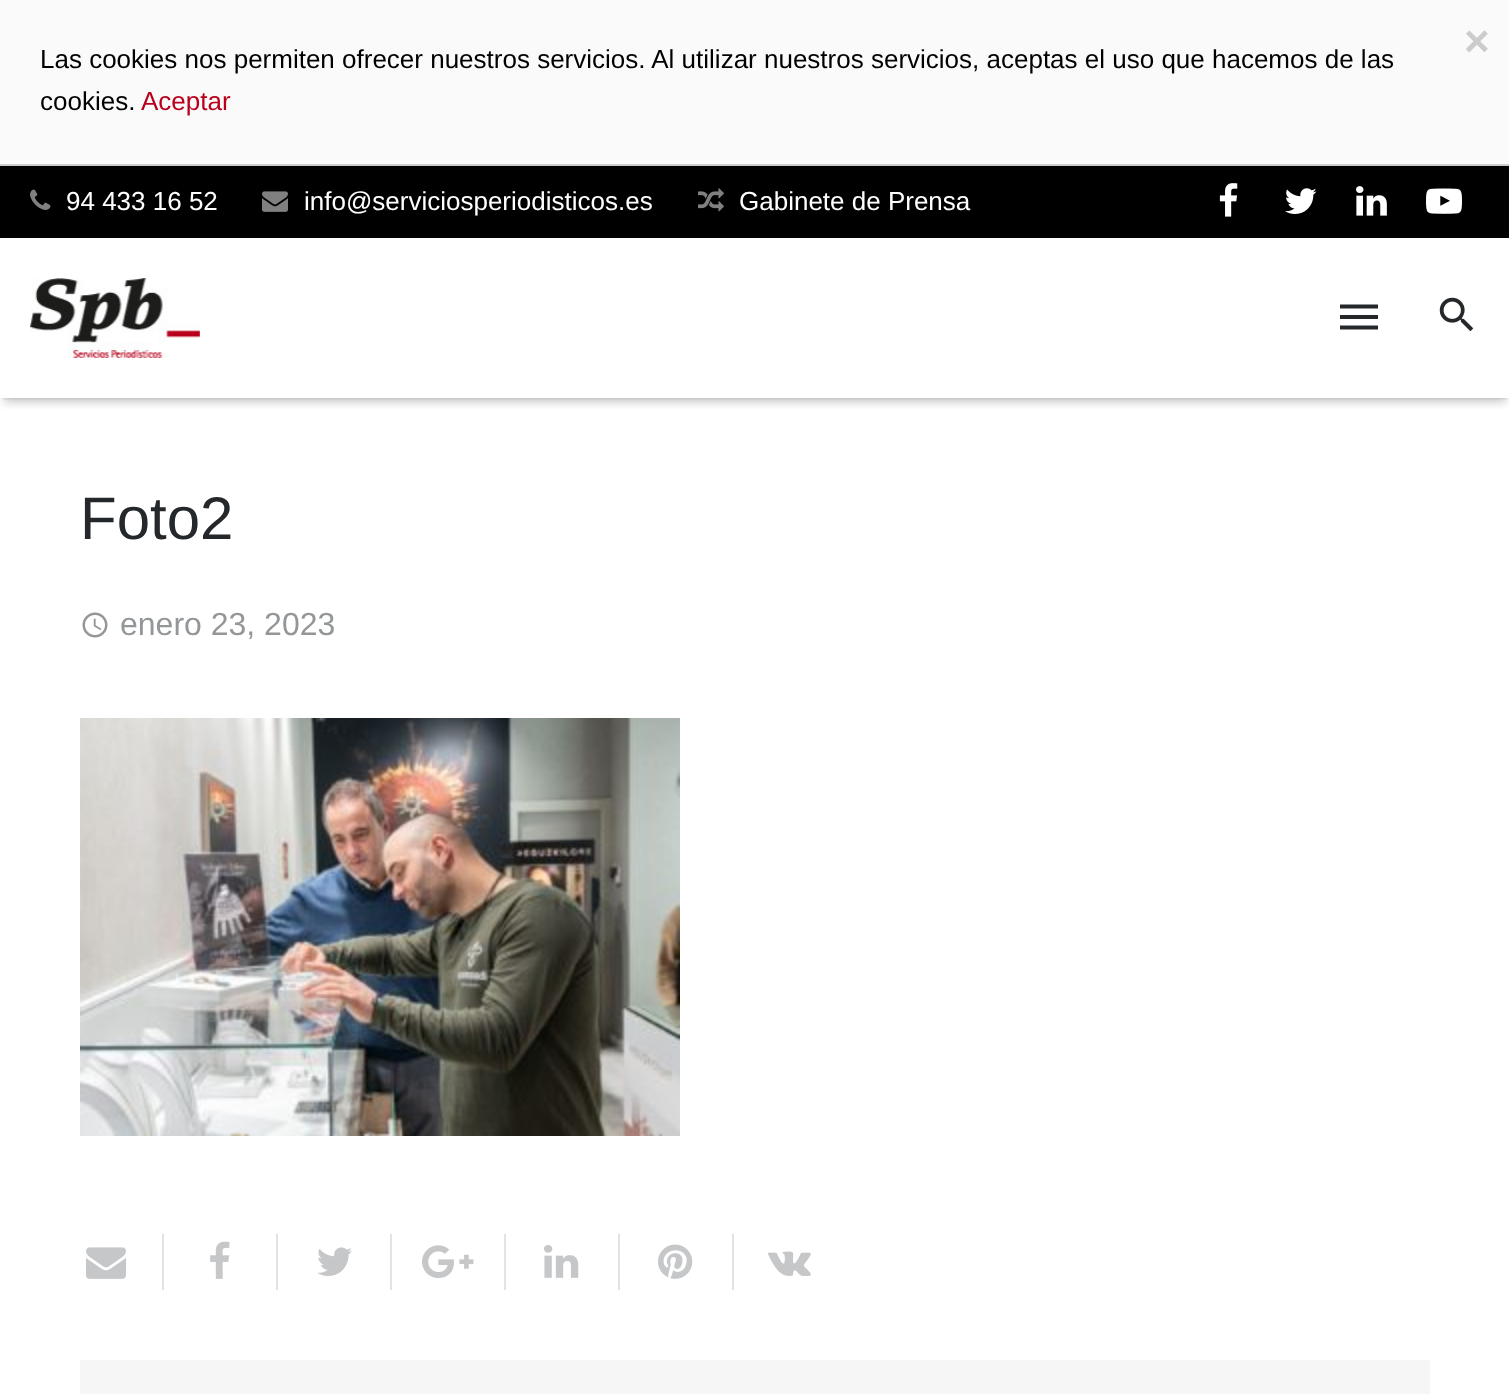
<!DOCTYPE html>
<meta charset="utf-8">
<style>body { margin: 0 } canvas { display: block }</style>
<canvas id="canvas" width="1509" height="1394"></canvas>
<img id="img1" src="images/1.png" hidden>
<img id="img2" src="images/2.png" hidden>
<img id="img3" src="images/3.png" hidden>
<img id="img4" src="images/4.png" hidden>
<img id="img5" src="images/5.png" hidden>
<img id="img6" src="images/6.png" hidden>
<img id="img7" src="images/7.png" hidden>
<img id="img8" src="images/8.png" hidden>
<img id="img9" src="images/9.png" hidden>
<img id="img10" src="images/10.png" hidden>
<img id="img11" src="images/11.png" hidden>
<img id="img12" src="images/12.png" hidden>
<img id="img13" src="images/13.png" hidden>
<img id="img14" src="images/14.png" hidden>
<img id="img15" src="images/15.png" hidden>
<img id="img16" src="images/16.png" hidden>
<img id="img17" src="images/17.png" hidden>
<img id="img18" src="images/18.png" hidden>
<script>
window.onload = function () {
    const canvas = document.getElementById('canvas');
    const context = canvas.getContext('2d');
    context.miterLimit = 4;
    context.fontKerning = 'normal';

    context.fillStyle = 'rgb(255, 255, 255)';
    context.fillRect(0, 0, 1509, 1394);
    context.fillStyle = 'rgb(250, 250, 250)';
    context.fillRect(0, 0, 1509, 164);
    context.fillStyle = 'rgb(204, 204, 204)';
    context.fillRect(0, 164, 1509, 2);
    context.fillStyle = 'rgb(0, 0, 0)';
    context.fillRect(0, 166, 1509, 72);
    context.drawImage(document.getElementById('img1'), 30, 189, 21, 21);
    context.drawImage(document.getElementById('img2'), 262, 191, 26, 21);
    context.drawImage(document.getElementById('img3'), 698, 188, 26, 24);
    context.drawImage(document.getElementById('img4'), 1219, 183, 19, 34);
    context.drawImage(document.getElementById('img5'), 1285, 188, 32, 26);
    context.drawImage(document.getElementById('img6'), 1356, 186, 31, 30);
    context.drawImage(document.getElementById('img7'), 1426, 188, 36, 26);
    context.save();
    context.beginPath();
    context.rect(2, 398, 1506, 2);
    context.clip();
    context.fillStyle = 'rgba(0, 0, 0, 0.05)';
    context.filter = 'blur(1px)';
    context.beginPath();
    context.rect(2, 244, 1506, 156);
    context.fill();
    context.filter = 'none';
    context.restore();
    context.save();
    context.beginPath();
    context.rect(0, 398, 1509, 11);
    context.clip();
    context.fillStyle = 'rgba(0, 0, 0, 0.22)';
    context.filter = 'blur(5px)';
    context.beginPath();
    context.rect(4, 250, 1502, 152);
    context.fill();
    context.filter = 'none';
    context.restore();
    context.drawImage(document.getElementById('img8'), 30, 278, 170, 80);
    context.fillStyle = 'rgb(37, 40, 43)';
    context.beginPath();
    context.moveTo(1340, 304.5);
    context.lineTo(1378, 304.5);
    context.lineTo(1378, 308.5);
    context.lineTo(1340, 308.5);
    context.closePath();
    context.moveTo(1340, 319);
    context.lineTo(1340, 315);
    context.lineTo(1378, 315);
    context.lineTo(1378, 319);
    context.closePath();
    context.moveTo(1340, 329.5);
    context.lineTo(1340, 325.5);
    context.lineTo(1378, 325.5);
    context.lineTo(1378, 329.5);
    context.closePath();
    context.fill();
    context.drawImage(document.getElementById('img9'), 1439, 297, 35, 35);
    context.drawImage(document.getElementById('img10'), 82, 612, 26, 26);
    context.drawImage(document.getElementById('img11'), 80, 718, 600, 418);
    context.fillStyle = 'rgb(225, 228, 229)';
    context.fillRect(162, 1234, 2, 56);
    context.drawImage(document.getElementById('img12'), 86, 1247, 40, 32);
    context.fillRect(276, 1234, 2, 56);
    context.drawImage(document.getElementById('img13'), 210, 1241, 20, 38);
    context.fillRect(390, 1234, 2, 56);
    context.drawImage(document.getElementById('img14'), 317, 1247, 35, 29);
    context.fillRect(504, 1234, 2, 56);
    context.drawImage(document.getElementById('img15'), 422, 1245, 52, 34);
    context.fillRect(618, 1234, 2, 56);
    context.drawImage(document.getElementById('img16'), 544, 1245, 35, 33);
    context.fillRect(732, 1234, 2, 56);
    context.drawImage(document.getElementById('img17'), 658, 1244, 35, 35);
    context.drawImage(document.getElementById('img18'), 768, 1251, 43, 25);
    context.fillStyle = 'rgb(246, 246, 246)';
    context.fillRect(80, 1360, 1350, 34);
    context.font = 'bold 44px Liberation Sans';
    context.fillStyle = 'rgb(204, 204, 204)';
    context.fillText('×', 1464, 56);
    context.font = '26px Liberation Sans';
    context.fillStyle = 'rgb(0, 0, 0)';
    context.fillText('Las cookies nos permiten ofrecer nuestros servicios. Al utilizar nuestros servicios, aceptas el uso que hacemos de las', 40, 68);
    context.fillText('cookies.', 40, 110);
    context.fillStyle = 'rgb(184, 0, 28)';
    context.fillText('Aceptar', 141, 110);
    context.fillStyle = 'rgb(255, 255, 255)';
    context.fillText('94 433 16 52', 66, 210);
    context.fillText('info@serviciosperiodisticos.es', 304, 210);
    context.fillText('Gabinete de Prensa', 739, 210);
    context.font = '60px Liberation Sans';
    context.fillStyle = 'rgb(37, 40, 43)';
    context.fillText('Foto2', 80, 539);
    context.font = '32px Liberation Sans';
    context.fillStyle = 'rgb(148, 151, 153)';
    context.fillText('enero 23, 2023', 120, 635);
};
</script>
